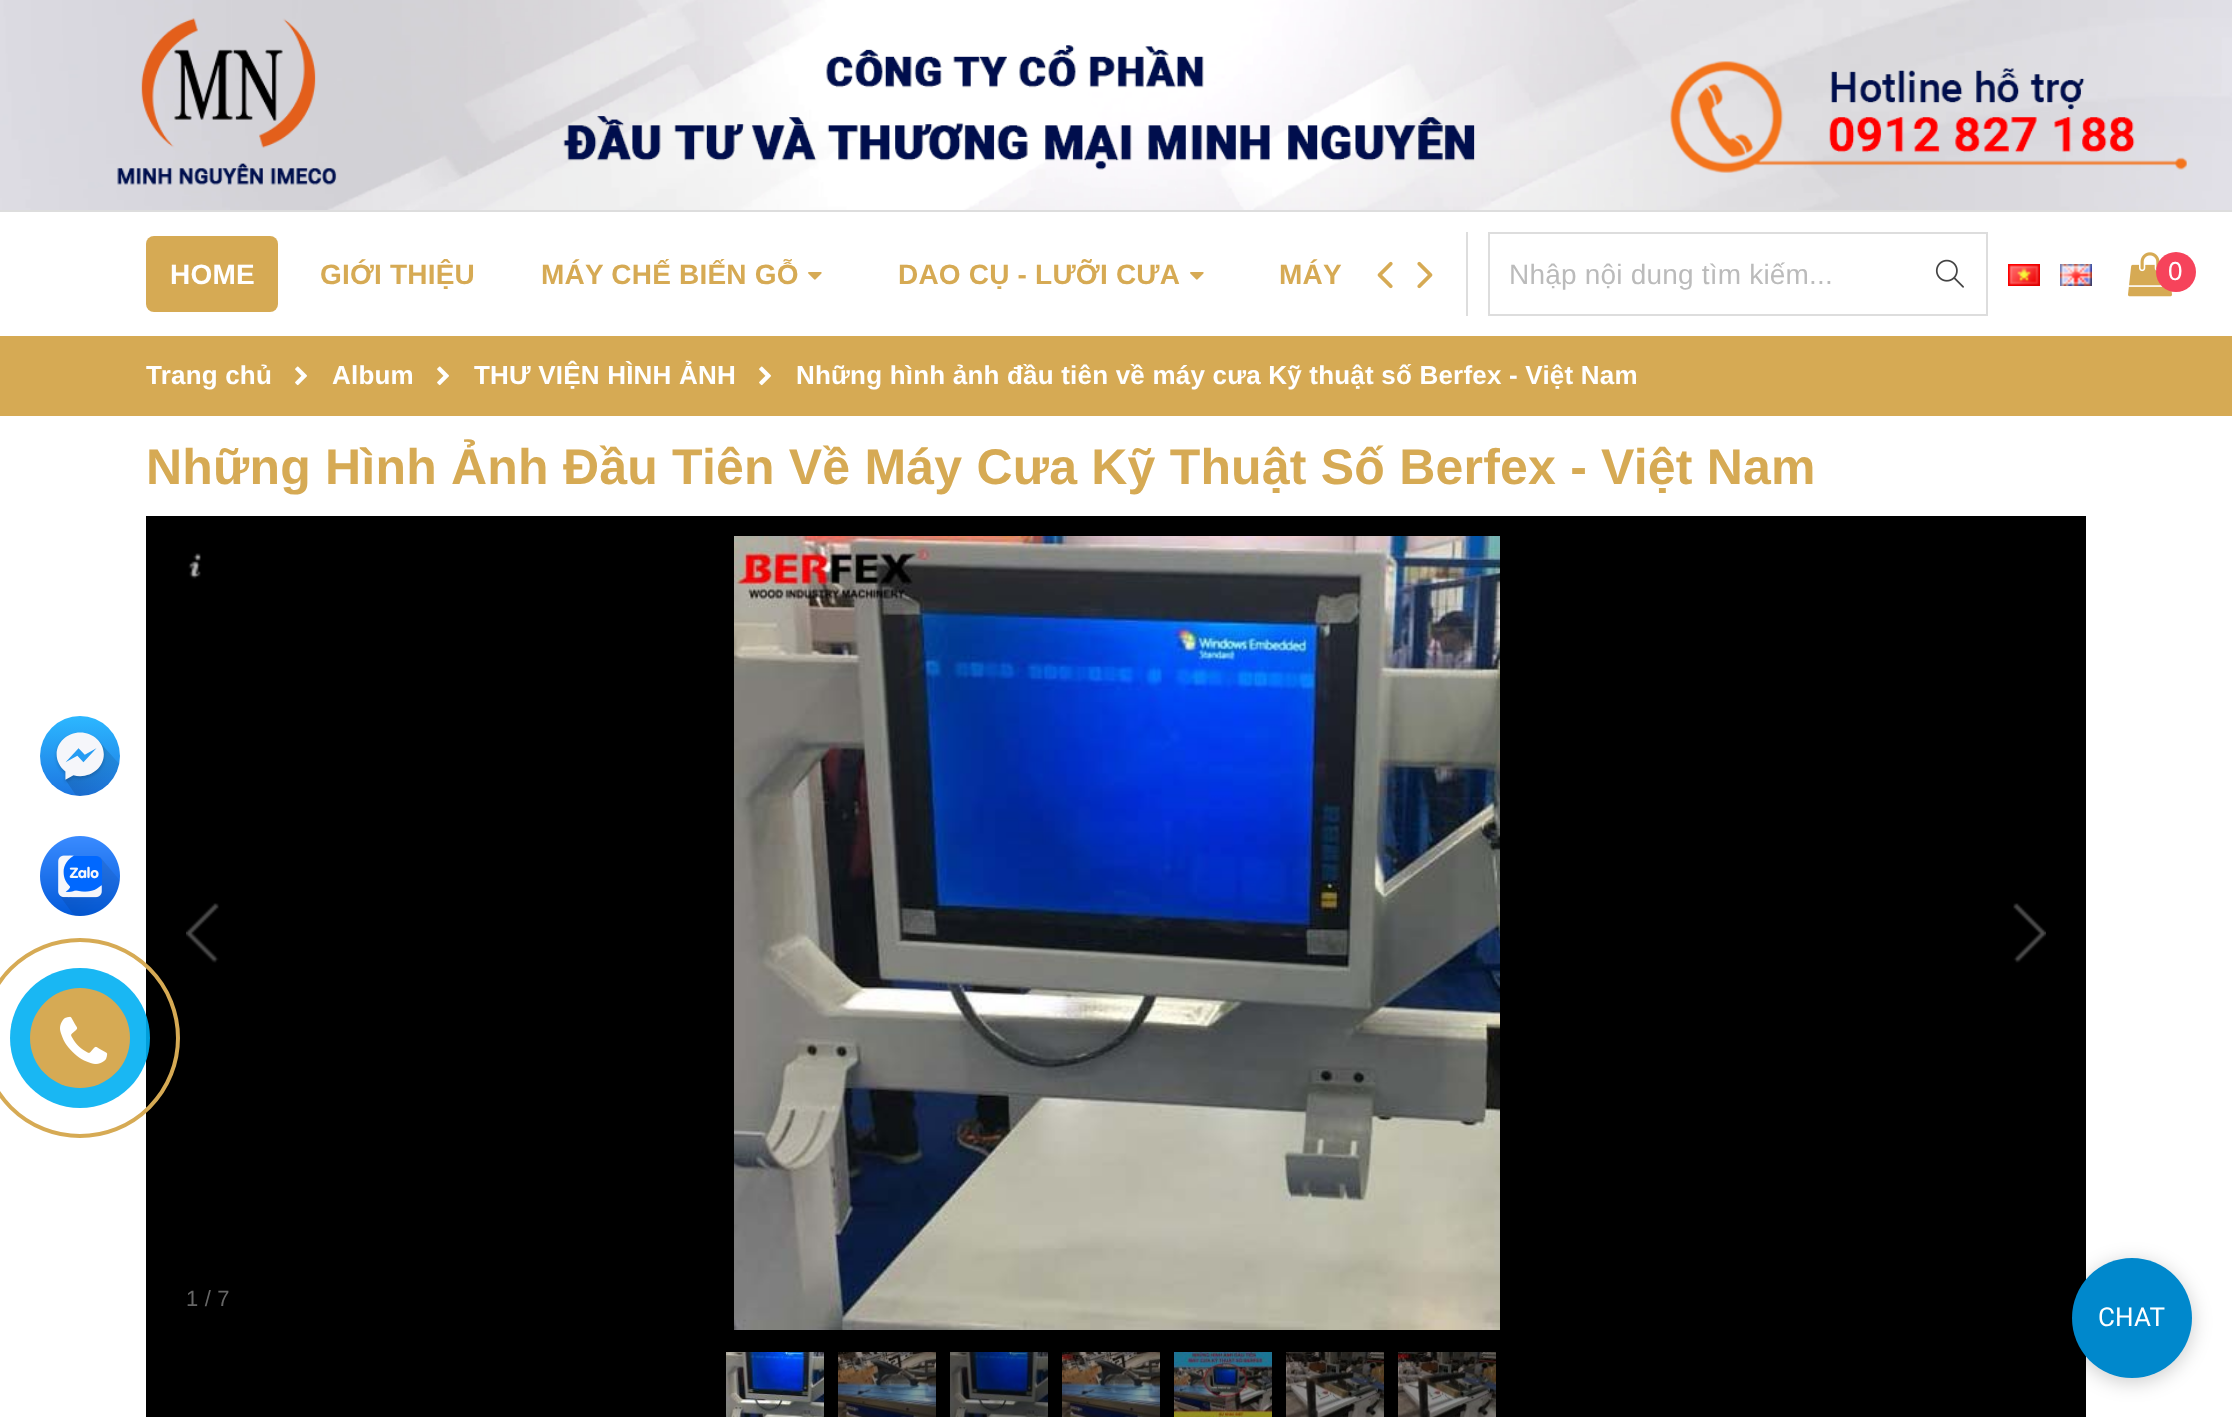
<!DOCTYPE html>
<meta charset="utf-8">
<style>body { margin: 0 } canvas { display: block }</style>
<canvas id="canvas" width="2232" height="1417"></canvas>
<img id="img1" src="images/1.png" hidden>
<img id="img2" src="images/2.png" hidden>
<img id="img3" src="images/3.png" hidden>
<img id="img4" src="images/4.png" hidden>
<img id="img5" src="images/5.png" hidden>
<img id="img6" src="images/6.png" hidden>
<img id="img7" src="images/7.png" hidden>
<img id="img8" src="images/8.png" hidden>
<img id="img9" src="images/9.png" hidden>
<img id="img10" src="images/10.png" hidden>
<img id="img11" src="images/11.png" hidden>
<img id="img12" src="images/12.png" hidden>
<img id="img13" src="images/13.png" hidden>
<img id="img14" src="images/14.png" hidden>
<img id="img15" src="images/15.png" hidden>
<img id="img16" src="images/16.png" hidden>
<img id="img17" src="images/17.png" hidden>
<img id="img18" src="images/18.png" hidden>
<img id="img19" src="images/19.png" hidden>
<img id="img20" src="images/20.png" hidden>
<img id="img21" src="images/21.png" hidden>
<img id="img22" src="images/22.png" hidden>
<img id="img23" src="images/23.png" hidden>
<script>
window.onload = function () {
    const canvas = document.getElementById('canvas');
    const context = canvas.getContext('2d');
    context.miterLimit = 4;
    context.fontKerning = 'normal';

    context.fillStyle = 'rgb(255, 255, 255)';
    context.fillRect(0, 0, 2232, 1417);
    context.fillStyle = 'rgb(221, 221, 221)';
    context.fillRect(0, 210, 2232, 2);
    context.drawImage(document.getElementById('img1'), 0, 0, 2232, 210);
    context.fillStyle = 'rgb(214, 170, 84)';
    context.beginPath();
    context.roundRect(146, 236, 132, 76, 8);
    context.fill();
    context.drawImage(document.getElementById('img2'), 808, 272, 14, 8);
    context.drawImage(document.getElementById('img2'), 1190, 272, 14, 8);
    context.drawImage(document.getElementById('img3'), 1377, 261, 16, 28);
    context.drawImage(document.getElementById('img4'), 1417, 261, 16, 28);
    context.fillStyle = 'rgb(221, 221, 221)';
    context.fillRect(1466, 232, 2, 84);
    context.strokeStyle = 'rgb(221, 221, 221)';
    context.lineWidth = 2;
    context.strokeRect(1489, 233, 498, 82);
    context.drawImage(document.getElementById('img5'), 1935, 259, 29, 29);
    context.drawImage(document.getElementById('img6'), 2008, 264, 32, 22);
    context.drawImage(document.getElementById('img7'), 2060, 264, 32, 22);
    context.drawImage(document.getElementById('img8'), 2128, 252, 44, 45);
    context.fillStyle = 'rgb(246, 67, 91)';
    context.beginPath();
    context.arc(2176, 272, 20, 0, 2 * Math.PI);
    context.fill();
    context.drawImage(document.getElementById('img9'), 40, 716, 80, 80);
    context.drawImage(document.getElementById('img10'), 40, 836, 80, 80);
    context.fillStyle = 'rgb(214, 170, 84)';
    context.fillRect(0, 336, 2232, 80);
    context.drawImage(document.getElementById('img11'), 295, 366, 12, 20);
    context.drawImage(document.getElementById('img11'), 437, 366, 12, 20);
    context.drawImage(document.getElementById('img11'), 759, 366, 12, 20);
    context.fillStyle = 'rgb(0, 0, 0)';
    context.fillRect(146, 516, 1940, 901);
    context.drawImage(document.getElementById('img12'), 188, 553, 13, 26);
    context.drawImage(document.getElementById('img13'), 734, 536, 766, 794);
    context.drawImage(document.getElementById('img14'), 186, 903, 33, 60);
    context.drawImage(document.getElementById('img15'), 2013, 903, 33, 60);
    context.drawImage(document.getElementById('img16'), 726, 1352, 98, 65);
    context.drawImage(document.getElementById('img17'), 838, 1352, 98, 65);
    context.drawImage(document.getElementById('img18'), 950, 1352, 98, 65);
    context.drawImage(document.getElementById('img19'), 1062, 1352, 98, 65);
    context.drawImage(document.getElementById('img20'), 1174, 1352, 98, 65);
    context.drawImage(document.getElementById('img21'), 1286, 1352, 98, 65);
    context.drawImage(document.getElementById('img22'), 1398, 1352, 98, 65);
    context.beginPath();
    context.arc(80, 1038, 98, 0, 2 * Math.PI);
    context.strokeStyle = 'rgb(214, 170, 84)';
    context.lineWidth = 4;
    context.stroke();
    context.fillStyle = 'rgba(0, 175, 242, 0.9)';
    context.beginPath();
    context.arc(80, 1038, 70, 0, 2 * Math.PI);
    context.fill();
    context.fillStyle = 'rgb(214, 170, 84)';
    context.beginPath();
    context.arc(80, 1038, 50, 0, 2 * Math.PI);
    context.fill();
    context.drawImage(document.getElementById('img23'), 60, 1016, 48, 48);
    context.fillStyle = 'rgba(0, 0, 0, 0.2)';
    context.filter = 'blur(10px)';
    context.beginPath();
    context.roundRect(2072, 1262, 120, 120, 60);
    context.fill();
    context.filter = 'none';
    context.fillStyle = 'rgb(0, 136, 204)';
    context.beginPath();
    context.arc(2132, 1318, 60, 0, 2 * Math.PI);
    context.fill();
    context.letterSpacing = '0.2px';
    context.font = 'bold 28px Liberation Sans';
    context.fillStyle = 'rgb(255, 255, 255)';
    context.fillText('HOME', 170, 284);
    context.fillStyle = 'rgb(214, 170, 84)';
    context.fillText('GIỚI THIỆU', 320, 284);
    context.fillText('MÁY CHẾ BIẾN GỖ', 541, 284);
    context.fillText('DAO CỤ - LƯỠI CƯA', 898, 284);
    context.fillText('MÁY', 1279, 284);
    context.font = '28px Liberation Sans';
    context.fillStyle = 'rgb(187, 187, 187)';
    context.fillText('Nhập nội dung tìm kiếm...', 1509, 284);
    context.font = '26px Liberation Sans';
    context.fillStyle = 'rgb(255, 255, 255)';
    context.fillText('0', 2168, 280);
    context.font = 'bold 26px Liberation Sans';
    context.fillText('Trang chủ', 146, 384);
    context.fillText('Album', 332, 384);
    context.fillText('THƯ VIỆN HÌNH ẢNH', 474, 384);
    context.fillText('Những hình ảnh đầu tiên về máy cưa Kỹ thuật số Berfex - Việt Nam', 796, 384);
    context.font = 'bold 50px Liberation Sans';
    context.fillStyle = 'rgb(214, 170, 84)';
    context.fillText('Những Hình Ảnh Đầu Tiên Về Máy Cưa Kỹ Thuật Số Berfex - Việt Nam', 146, 484);
    context.font = '22px Liberation Sans';
    context.fillStyle = 'rgb(102, 102, 102)';
    context.fillText('1 / 7', 186, 1306);
    context.font = '26px Roboto';
    context.fillStyle = 'rgb(255, 255, 255)';
    context.fillText('CHAT', 2098, 1326);
};
</script>
